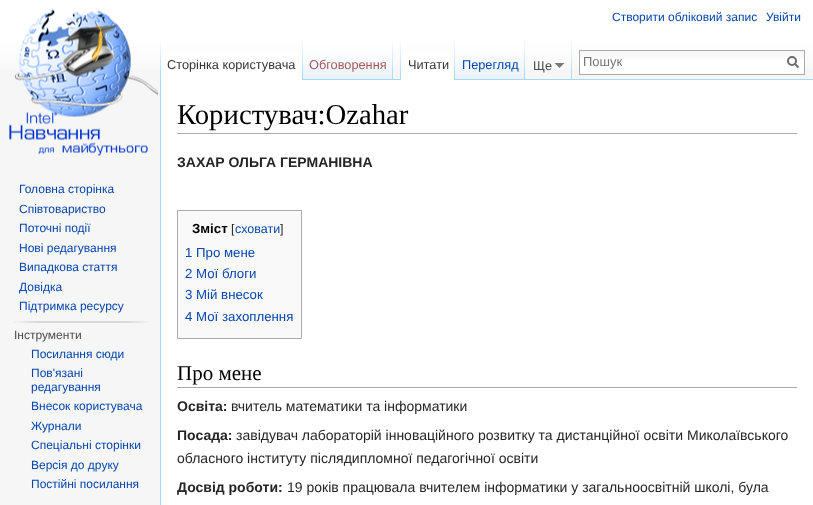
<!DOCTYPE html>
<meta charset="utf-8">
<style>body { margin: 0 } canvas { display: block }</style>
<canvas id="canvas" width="813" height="505"></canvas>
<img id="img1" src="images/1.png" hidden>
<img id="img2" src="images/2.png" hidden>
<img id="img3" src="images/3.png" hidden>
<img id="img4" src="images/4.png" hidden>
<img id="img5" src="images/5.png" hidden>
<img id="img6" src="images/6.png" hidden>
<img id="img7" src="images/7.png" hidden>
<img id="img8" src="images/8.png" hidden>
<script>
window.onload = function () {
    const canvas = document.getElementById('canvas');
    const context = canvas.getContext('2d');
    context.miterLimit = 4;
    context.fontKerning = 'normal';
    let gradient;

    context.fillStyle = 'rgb(246, 246, 246)';
    context.fillRect(0, 0, 813, 505);
    gradient = context.createLinearGradient(407, 0, 407, 80);
    gradient.addColorStop(0.5, 'rgb(255, 255, 255)');
    gradient.addColorStop(1, 'rgb(246, 246, 246)');
    context.fillStyle = gradient;
    context.fillRect(0, 0, 813, 69);
    context.drawImage(document.getElementById('img1'), 160, 40, 1, 39);
    context.fillStyle = 'rgb(255, 255, 255)';
    context.fillRect(161, 51, 141, 29);
    context.drawImage(document.getElementById('img2'), 302, 40, 1, 40);
    context.drawImage(document.getElementById('img3'), 303, 40, 90, 40);
    context.drawImage(document.getElementById('img4'), 392, 40, 1, 39);
    context.drawImage(document.getElementById('img1'), 400, 40, 1, 39);
    context.fillStyle = 'rgb(167, 215, 249)';
    context.fillRect(393, 79, 420, 1);
    context.fillStyle = 'rgb(255, 255, 255)';
    context.fillRect(401, 51, 53, 29);
    context.drawImage(document.getElementById('img2'), 454, 40, 1, 40);
    context.drawImage(document.getElementById('img5'), 455, 40, 70, 40);
    context.drawImage(document.getElementById('img4'), 524, 40, 1, 39);
    context.drawImage(document.getElementById('img1'), 571, 40, 1, 39);
    context.fillStyle = 'rgb(121, 121, 121)';
    context.beginPath();
    context.moveTo(564.5, 63);
    context.lineTo(559.5, 68);
    context.lineTo(554.5, 63);
    context.closePath();
    context.fill();
    context.fillStyle = 'rgb(255, 255, 255)';
    context.fillRect(580, 59, 224, 15);
    context.drawImage(document.getElementById('img6'), 580, 51, 224, 8);
    context.strokeStyle = 'rgb(170, 170, 170)';
    context.strokeRect(579.5, 50.5, 225, 24);
    context.beginPath();
    context.moveTo(798.5, 67.5);
    context.lineTo(794.5, 63.5);
    context.strokeStyle = 'rgb(108, 108, 108)';
    context.lineWidth = 2;
    context.stroke();
    context.beginPath();
    context.arc(792, 61, 4, 0, 2 * Math.PI);
    context.stroke();
    context.drawImage(document.getElementById('img7'), 9, 9, 149, 147);
    context.drawImage(document.getElementById('img8'), 14, 321, 135, 2);
    context.fillRect(161, 80, 652, 425);
    context.fillStyle = 'rgb(167, 215, 249)';
    context.fillRect(160, 79, 1, 426);
    context.fillStyle = 'rgb(170, 170, 170)';
    context.fillRect(177, 133, 620, 1);
    context.fillStyle = 'rgb(249, 249, 249)';
    context.beginPath();
    context.rect(177.5, 210.5, 124, 128);
    context.fill();
    context.strokeStyle = 'rgb(170, 170, 170)';
    context.lineWidth = 1;
    context.stroke();
    context.fillStyle = 'rgb(170, 170, 170)';
    context.fillRect(177, 387, 620, 1);
    context.font = '12px Liberation Sans';
    context.fillStyle = 'rgb(6, 69, 173)';
    context.fillText('Створити обліковий запис', 612, 21);
    context.fillText('Увійти', 766, 21);
    context.font = '12.75px Liberation Sans';
    context.fillStyle = 'rgb(51, 51, 51)';
    context.fillText('Сторінка користувача', 167, 69);
    context.fillStyle = 'rgb(165, 88, 88)';
    context.fillText('Обговорення', 309, 69);
    context.fillStyle = 'rgb(51, 51, 51)';
    context.fillText('Читати', 408, 69);
    context.fillStyle = 'rgb(6, 69, 173)';
    context.fillText('Перегляд', 462, 69);
    context.fillStyle = 'rgb(77, 77, 77)';
    context.fillText('Ще', 533, 70);
    context.font = '13px Liberation Sans';
    context.fillStyle = 'rgb(117, 117, 117)';
    context.fillText('Пошук', 583, 66);
    context.font = '12px Liberation Sans';
    context.fillStyle = 'rgb(6, 69, 173)';
    context.fillText('Головна сторінка', 19, 193);
    context.fillText('Співтовариство', 19, 213);
    context.fillText('Поточні події', 19, 232);
    context.fillText('Нові редагування', 19, 252);
    context.fillText('Випадкова стаття', 19, 271);
    context.fillText('Довідка', 19, 291);
    context.fillText('Підтримка ресурсу', 19, 310);
    context.fillStyle = 'rgb(77, 77, 77)';
    context.fillText('Інструменти', 14, 339);
    context.fillStyle = 'rgb(6, 69, 173)';
    context.fillText('Посилання сюди', 31, 358);
    context.fillText('Пов\'язані', 31, 377);
    context.fillText('редагування', 31, 391);
    context.fillText('Внесок користувача', 31, 410);
    context.fillText('Журнали', 31, 430);
    context.fillText('Спеціальні сторінки', 31, 449);
    context.fillText('Версія до друку', 31, 469);
    context.fillText('Постійні посилання', 31, 488);
    context.font = '28.75px Liberation Serif';
    context.fillStyle = 'rgb(0, 0, 0)';
    context.fillText('Користувач:Ozahar', 177, 124);
    context.font = 'bold 14px Liberation Sans';
    context.fillStyle = 'rgb(37, 37, 37)';
    context.fillText('ЗАХАР ОЛЬГА ГЕРМАНІВНА', 177, 167);
    context.font = 'bold 13.25px Liberation Sans';
    context.fillStyle = 'rgb(0, 0, 0)';
    context.fillText('Зміст', 192, 233);
    context.font = '12.5px Liberation Sans';
    context.fillStyle = 'rgb(37, 37, 37)';
    context.fillText('[', 231, 233);
    context.fillStyle = 'rgb(6, 69, 173)';
    context.fillText('сховати', 235, 233);
    context.fillStyle = 'rgb(37, 37, 37)';
    context.fillText(']', 280, 233);
    context.font = '13.25px Liberation Sans';
    context.fillStyle = 'rgb(6, 69, 173)';
    context.fillText('1 Про мене', 185, 257);
    context.fillText('2 Мої блоги', 185, 278);
    context.fillText('3 Мій внесок', 185, 299);
    context.fillText('4 Мої захоплення', 185, 321);
    context.font = '21px Liberation Serif';
    context.fillStyle = 'rgb(0, 0, 0)';
    context.fillText('Про мене', 177, 380);
    context.font = 'bold 14px Liberation Sans';
    context.fillStyle = 'rgb(37, 37, 37)';
    context.fillText('Освіта:', 177, 411);
    context.font = '14px Liberation Sans';
    context.fillText('вчитель математики та інформатики', 231, 411);
    context.font = 'bold 14px Liberation Sans';
    context.fillText('Посада:', 177, 440);
    context.font = '14px Liberation Sans';
    context.fillText('завідувач лабораторій інноваційного розвитку та дистанційної освіти Миколаївського', 236, 440);
    context.fillText('обласного інституту післядипломної педагогічної освіти', 177, 463);
    context.font = 'bold 14px Liberation Sans';
    context.fillText('Досвід роботи:', 177, 492);
    context.font = '14px Liberation Sans';
    context.fillText('19 років працювала вчителем інформатики у загальноосвітній школі, була', 287, 492);
};
</script>
